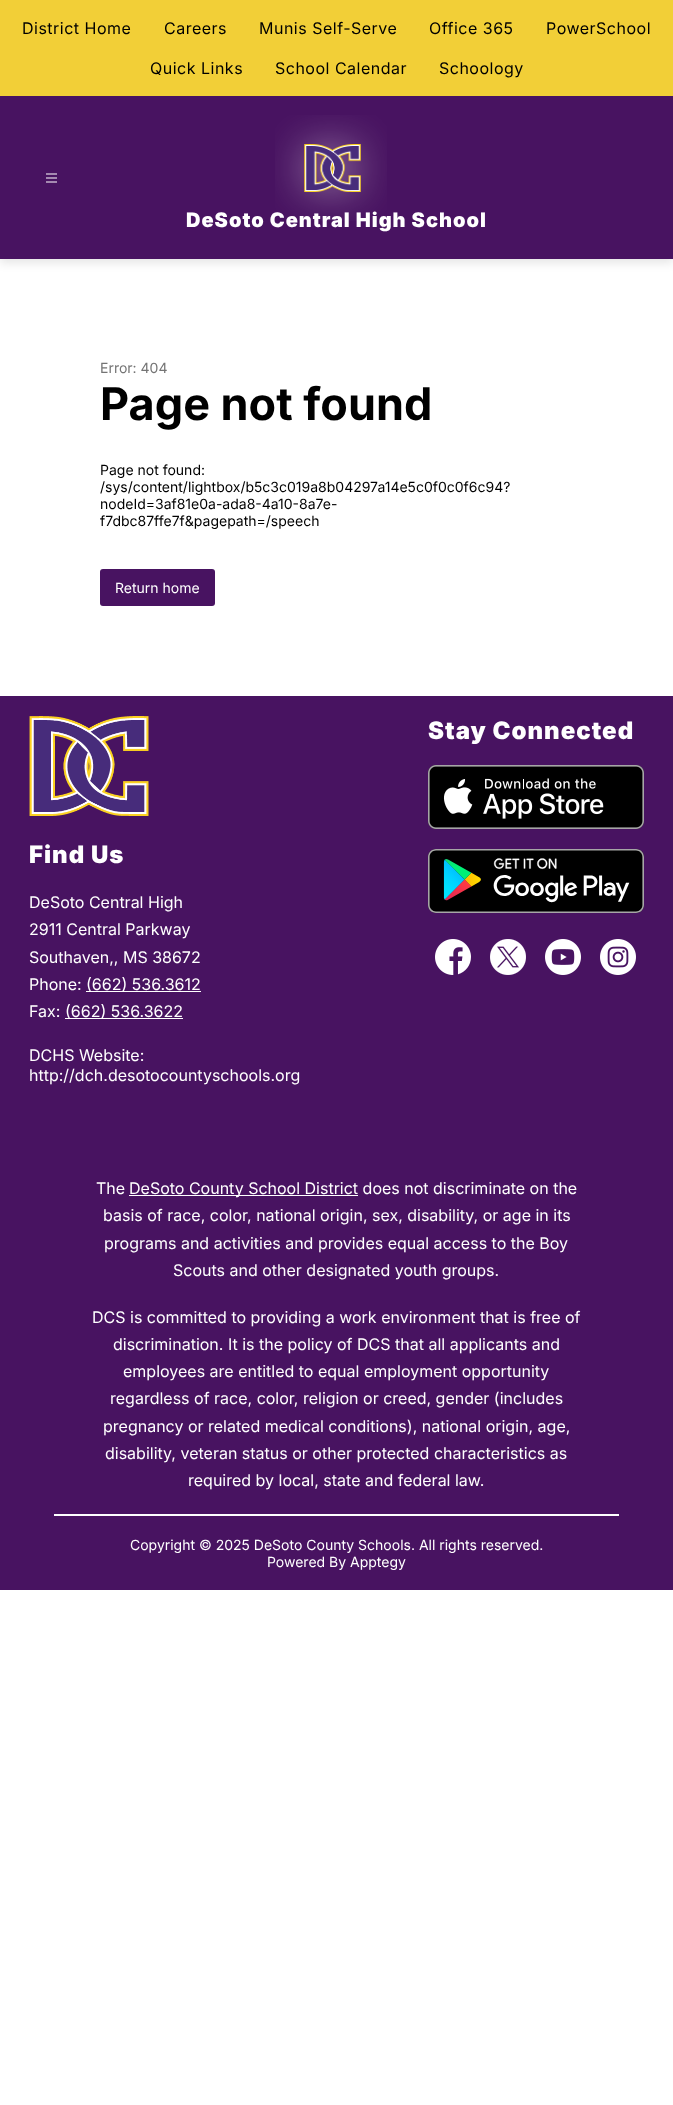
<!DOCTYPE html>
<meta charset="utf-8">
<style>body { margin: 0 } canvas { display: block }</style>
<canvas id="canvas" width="673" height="2105"></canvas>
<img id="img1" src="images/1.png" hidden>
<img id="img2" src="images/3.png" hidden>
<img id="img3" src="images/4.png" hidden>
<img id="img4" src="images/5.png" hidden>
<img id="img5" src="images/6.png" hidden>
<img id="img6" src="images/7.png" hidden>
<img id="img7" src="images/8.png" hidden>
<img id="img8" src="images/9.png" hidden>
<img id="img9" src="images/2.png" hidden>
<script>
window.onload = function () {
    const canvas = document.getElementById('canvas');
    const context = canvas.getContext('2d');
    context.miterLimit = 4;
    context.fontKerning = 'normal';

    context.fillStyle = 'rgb(255, 255, 255)';
    context.fillRect(0, 0, 673, 2105);
    context.fillStyle = 'rgba(0, 0, 0, 0.1)';
    context.filter = 'blur(5px)';
    context.beginPath();
    context.rect(0, 4, 673, 259);
    context.fill();
    context.filter = 'none';
    context.fillStyle = 'rgb(72, 19, 97)';
    context.fillRect(0, 96, 673, 163);
    context.fillStyle = 'rgb(242, 207, 55)';
    context.fillRect(0, 0, 673, 96);
    context.drawImage(document.getElementById('img1'), 46, 173, 11, 10);
    context.fillStyle = 'rgb(72, 19, 97)';
    context.beginPath();
    context.roundRect(100, 569, 115, 37, 3);
    context.fill();
    context.fillRect(0, 696, 673, 894);
    context.drawImage(document.getElementById('img2'), 428, 765, 216, 64);
    context.drawImage(document.getElementById('img3'), 428, 849, 216, 64);
    context.drawImage(document.getElementById('img4'), 435, 939, 36, 36);
    context.drawImage(document.getElementById('img5'), 490, 939, 36, 36);
    context.drawImage(document.getElementById('img6'), 545, 939, 36, 36);
    context.drawImage(document.getElementById('img7'), 600, 939, 36, 36);
    context.drawImage(document.getElementById('img8'), 29, 716, 120, 100);
    context.fillStyle = 'rgb(255, 255, 255)';
    context.fillRect(86, 991, 115, 1);
    context.fillRect(65, 1018, 118, 1);
    context.fillRect(129, 1195, 229, 1);
    context.fillRect(54, 1514, 565, 2);
    context.letterSpacing = '0.5px';
    context.font = '16px Inter';
    context.fillStyle = 'rgb(0, 0, 0)';
    context.fillText('District Home', 22, 34);
    context.fillText('Careers', 164, 34);
    context.fillText('Munis Self-Serve', 259, 34);
    context.fillText('Office 365', 429, 34);
    context.fillText('PowerSchool', 546, 34);
    context.fillText('Quick Links', 150, 74);
    context.fillText('School Calendar', 275, 74);
    context.fillText('Schoology', 439, 74);
    context.letterSpacing = '1px';
    context.font = '900 20px Inter';
    context.fillStyle = 'rgb(255, 255, 255)';
    context.fillText('DeSoto Central High School', 186, 227);
    context.drawImage(document.getElementById('img9'), 275, 115, 112, 106);
    context.letterSpacing = '0px';
    context.font = '14px Inter';
    context.fillStyle = 'rgb(116, 116, 116)';
    context.fillText('Error: 404', 100, 373);
    context.font = 'bold 45px Inter';
    context.fillStyle = 'rgb(0, 0, 0)';
    context.fillText('Page not found', 100, 420);
    context.font = '14px Inter';
    context.fillText('Page not found:', 100, 475);
    context.fillText('/sys/content/lightbox/b5c3c019a8b04297a14e5c0f0c0f6c94?', 100, 492);
    context.fillText('nodeId=3af81e0a-ada8-4a10-8a7e-', 100, 509);
    context.fillText('f7dbc87ffe7f&pagepath=/speech', 100, 526);
    context.fillStyle = 'rgb(255, 255, 255)';
    context.fillText('Return home', 115, 593);
    context.letterSpacing = '1px';
    context.font = '900 24px Inter';
    context.fillText('Stay Connected', 428, 739);
    context.fillText('Find Us', 29, 863);
    context.letterSpacing = '0px';
    context.font = '16px Inter';
    context.fillText('DeSoto Central High', 29, 908);
    context.fillText('2911 Central Parkway', 29, 935);
    context.fillText('Southaven,, MS 38672', 29, 963);
    context.fillText('Phone:', 29, 990);
    context.fillText('(662) 536.3612', 86, 990);
    context.fillText('Fax:', 29, 1017);
    context.fillText('(662) 536.3622', 65, 1017);
    context.fillText('DCHS Website:', 29, 1061);
    context.fillText('http://dch.desotocountyschools.org', 29, 1081);
    context.fillText('The', 96, 1194);
    context.fillText('DeSoto County School District does not discriminate on the', 129, 1194);
    context.fillText('basis of race, color, national origin, sex, disability, or age in its', 103, 1221);
    context.fillText('programs and activities and provides equal access to the Boy', 104, 1249);
    context.fillText('Scouts and other designated youth groups.', 173, 1276);
    context.fillText('DCS is committed to providing a work environment that is free of', 92, 1323);
    context.fillText('discrimination. It is the policy of DCS that all applicants and', 113, 1350);
    context.fillText('employees are entitled to equal employment opportunity', 123, 1377);
    context.fillText('regardless of race, color, religion or creed, gender (includes', 110, 1404);
    context.fillText('pregnancy or related medical conditions), national origin, age,', 103, 1432);
    context.fillText('disability, veteran status or other protected characteristics as', 105, 1459);
    context.fillText('required by local, state and federal law.', 188, 1486);
    context.font = '14px Inter';
    context.fillText('Copyright © 2025 DeSoto County Schools. All rights reserved.', 130, 1550);
    context.fillText('Powered By Apptegy', 267, 1567);
};
</script>
